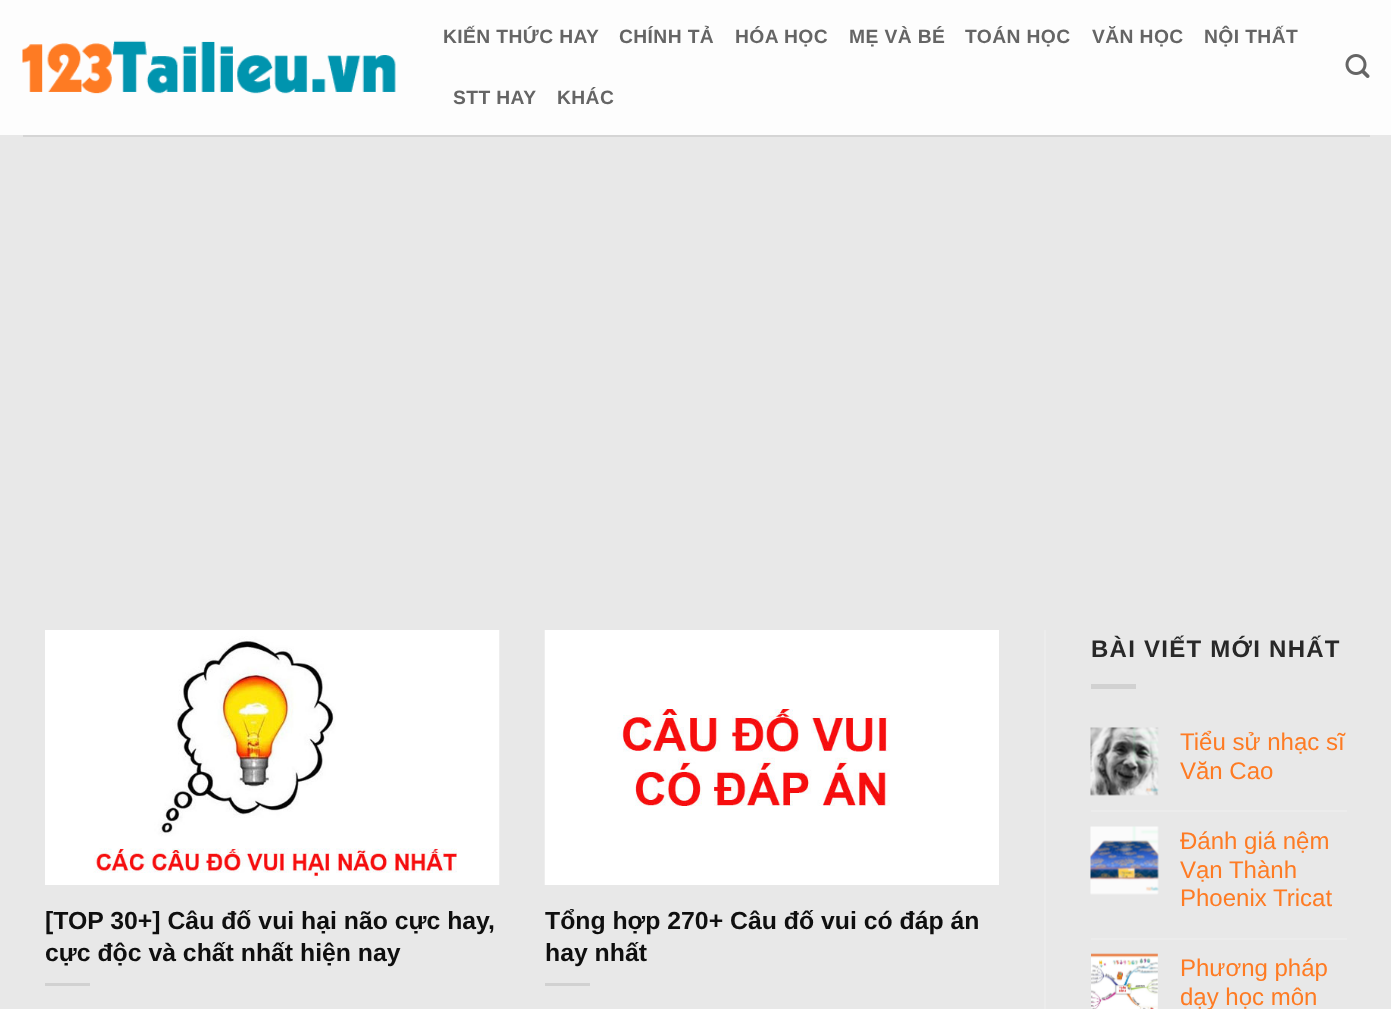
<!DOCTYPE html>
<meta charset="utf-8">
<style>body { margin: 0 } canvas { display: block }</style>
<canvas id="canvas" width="1391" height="1009"></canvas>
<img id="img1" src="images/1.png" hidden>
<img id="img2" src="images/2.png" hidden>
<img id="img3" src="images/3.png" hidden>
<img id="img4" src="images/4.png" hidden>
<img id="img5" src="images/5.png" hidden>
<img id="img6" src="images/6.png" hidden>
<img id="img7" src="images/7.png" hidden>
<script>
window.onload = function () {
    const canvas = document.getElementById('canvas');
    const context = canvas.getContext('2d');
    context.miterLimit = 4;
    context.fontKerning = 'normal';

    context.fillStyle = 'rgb(232, 232, 232)';
    context.fillRect(0, 0, 1391, 1009);
    context.fillStyle = 'rgb(253, 253, 253)';
    context.fillRect(0, 0, 1391, 135);
    context.drawImage(document.getElementById('img1'), 22, 40, 374, 54);
    context.drawImage(document.getElementById('img2'), 1345, 54, 25, 24);
    context.fillStyle = 'rgb(213, 213, 213)';
    context.fillRect(23, 135, 1347, 2);
    context.drawImage(document.getElementById('img3'), 45, 630, 455, 255);
    context.fillStyle = 'rgb(209, 209, 209)';
    context.fillRect(45, 983, 45, 3);
    context.drawImage(document.getElementById('img4'), 544, 630, 455, 255);
    context.fillRect(545, 983, 45, 3);
    context.fillStyle = 'rgb(236, 236, 236)';
    context.fillRect(1044, 630, 2, 379);
    context.fillStyle = 'rgb(209, 209, 209)';
    context.fillRect(1091, 684, 45, 5);
    context.drawImage(document.getElementById('img5'), 1090, 727, 69, 69);
    context.fillStyle = 'rgb(236, 236, 236)';
    context.fillRect(1091, 810, 256, 2);
    context.drawImage(document.getElementById('img6'), 1090, 826, 69, 69);
    context.fillRect(1091, 938, 256, 2);
    context.drawImage(document.getElementById('img7'), 1091, 953, 67, 56);
    context.letterSpacing = '0.4px';
    context.font = 'bold 19.25px Liberation Sans';
    context.fillStyle = 'rgb(101, 101, 101)';
    context.fillText('KIẾN THỨC HAY', 443, 43);
    context.fillText('CHÍNH TẢ', 619, 43);
    context.fillText('HÓA HỌC', 735, 43);
    context.fillText('MẸ VÀ BÉ', 849, 43);
    context.fillText('TOÁN HỌC', 965, 43);
    context.fillText('VĂN HỌC', 1092, 43);
    context.fillText('NỘI THẤT', 1204, 43);
    context.fillText('STT HAY', 453, 104);
    context.fillText('KHÁC', 557, 104);
    context.letterSpacing = '0px';
    context.font = 'bold 24.8px Liberation Sans';
    context.fillStyle = 'rgb(15, 15, 15)';
    context.fillText('[TOP 30+] Câu đố vui hại não cực hay,', 45, 929);
    context.fillText('cực độc và chất nhất hiện nay', 45, 961);
    context.fillText('Tổng hợp 270+ Câu đố vui có đáp án', 545, 929);
    context.fillText('hay nhất', 545, 961);
    context.letterSpacing = '1.25px';
    context.font = 'bold 24px Liberation Sans';
    context.fillStyle = 'rgb(40, 40, 40)';
    context.fillText('BÀI VIẾT MỚI NHẤT', 1091, 657);
    context.letterSpacing = '0px';
    context.font = '24px Liberation Sans';
    context.fillStyle = 'rgb(254, 123, 35)';
    context.fillText('Tiểu sử nhạc sĩ', 1180, 750);
    context.fillText('Văn Cao', 1180, 779);
    context.fillText('Đánh giá nệm', 1180, 849);
    context.fillText('Vạn Thành', 1180, 878);
    context.fillText('Phoenix Tricat', 1180, 906);
    context.fillText('Phương pháp', 1180, 976);
    context.fillText('dạy học môn', 1180, 1005);
};
</script>
